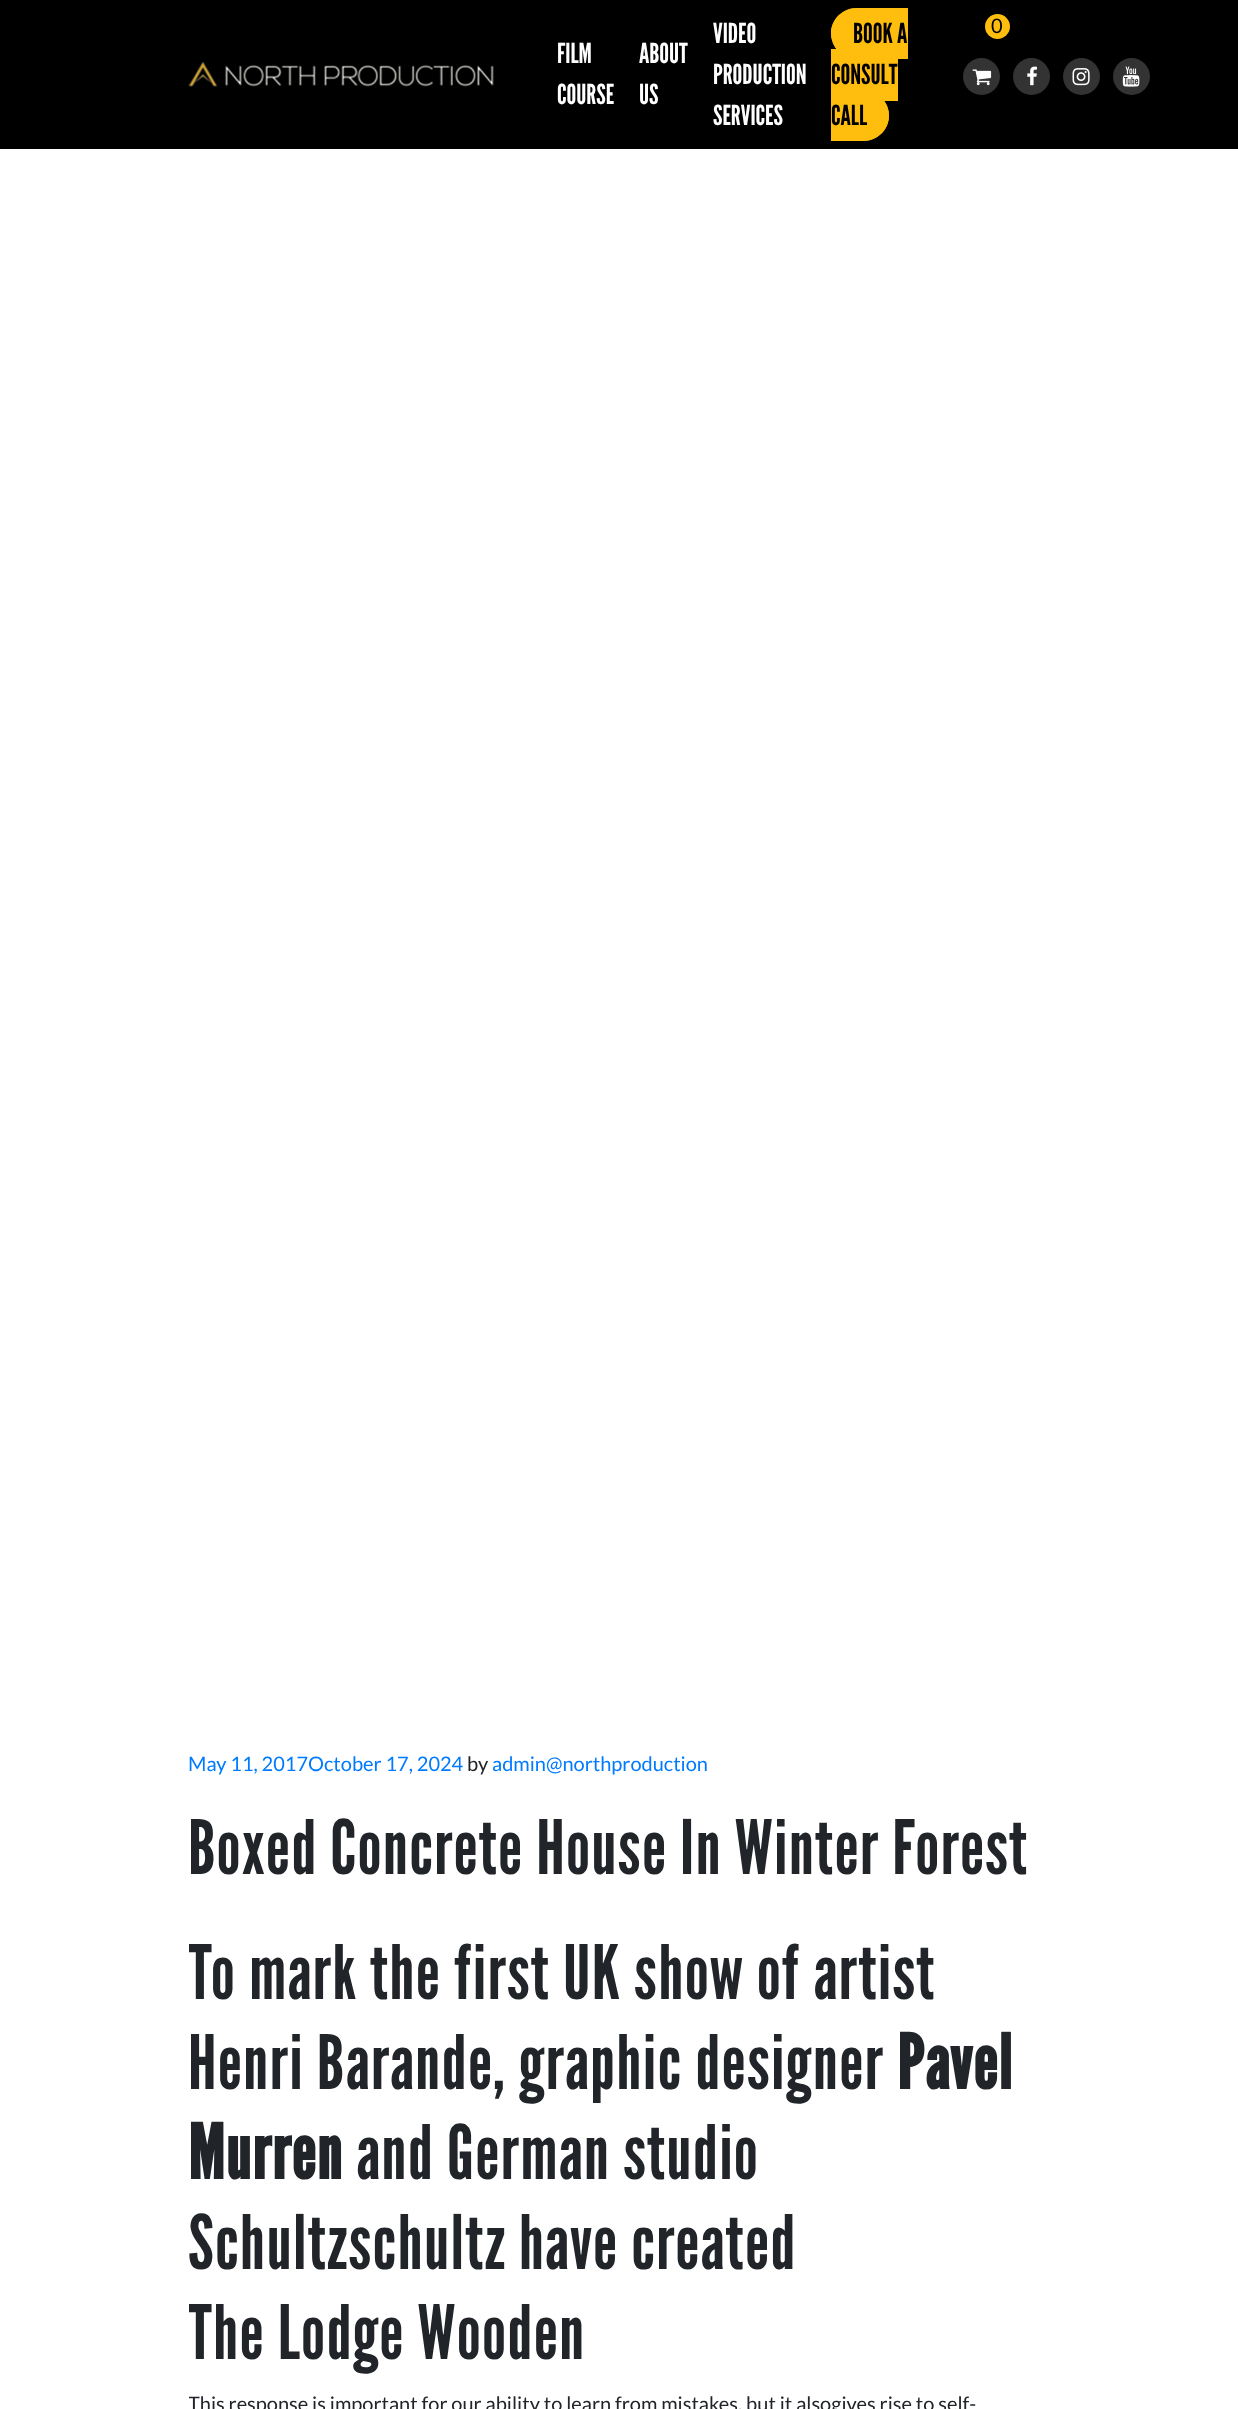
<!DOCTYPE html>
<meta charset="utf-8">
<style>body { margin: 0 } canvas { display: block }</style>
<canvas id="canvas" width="1238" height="2409"></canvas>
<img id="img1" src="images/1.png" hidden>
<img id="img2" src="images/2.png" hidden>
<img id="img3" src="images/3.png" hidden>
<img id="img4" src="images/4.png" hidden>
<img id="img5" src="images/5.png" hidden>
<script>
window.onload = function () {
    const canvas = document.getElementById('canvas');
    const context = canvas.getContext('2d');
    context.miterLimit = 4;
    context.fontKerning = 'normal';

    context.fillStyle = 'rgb(255, 255, 255)';
    context.fillRect(0, 0, 1238, 2409);
    context.fillStyle = 'rgb(0, 0, 0)';
    context.fillRect(0, 0, 1238, 149);
    context.drawImage(document.getElementById('img1'), 188, 61, 306, 26);
    context.fillStyle = 'rgb(255, 189, 13)';
    context.beginPath();
    context.roundRect(831, 8, 77, 51, [25.5, 0, 0, 25.5]);
    context.fill();
    context.beginPath();
    context.moveTo(857, 8);
    context.lineTo(908, 8);
    context.lineTo(908, 59);
    context.lineTo(857, 59);
    context.bezierCurveTo(843, 59, 831, 47, 831, 33);
    context.bezierCurveTo(831, 19, 843, 8, 857, 8);
    context.closePath();
    context.moveTo(857, 10);
    context.lineTo(908, 10);
    context.lineTo(908, 56);
    context.lineTo(857, 56);
    context.bezierCurveTo(844, 56, 834, 46, 834, 33);
    context.bezierCurveTo(834, 20, 844, 10, 857, 10);
    context.closePath();
    context.fill('evenodd');
    context.fillRect(831, 49, 67, 49);
    context.fillRect(882, 98, 16, 3);
    context.beginPath();
    context.roundRect(831, 90, 58, 51, [0, 25.5, 25.5, 0]);
    context.fill();
    context.beginPath();
    context.moveTo(831, 90);
    context.lineTo(863, 90);
    context.bezierCurveTo(877, 90, 889, 101, 889, 116);
    context.bezierCurveTo(889, 130, 877, 141, 863, 141);
    context.lineTo(831, 141);
    context.closePath();
    context.moveTo(831, 92);
    context.lineTo(863, 92);
    context.bezierCurveTo(876, 92, 886, 103, 886, 116);
    context.bezierCurveTo(886, 128, 876, 139, 863, 139);
    context.lineTo(831, 139);
    context.closePath();
    context.fill('evenodd');
    context.fillStyle = 'rgb(51, 51, 51)';
    context.beginPath();
    context.arc(981.5, 76.5, 18.5, 0, 2 * Math.PI);
    context.fill();
    context.fillStyle = 'rgb(255, 189, 13)';
    context.beginPath();
    context.arc(997.5, 26.5, 12.5, 0, 2 * Math.PI);
    context.fill();
    context.drawImage(document.getElementById('img2'), 972, 69, 20, 17);
    context.fillStyle = 'rgb(51, 51, 51)';
    context.beginPath();
    context.arc(1031.5, 76.5, 18.5, 0, 2 * Math.PI);
    context.fill();
    context.drawImage(document.getElementById('img3'), 1027, 66, 10, 20);
    context.beginPath();
    context.arc(1081.5, 76.5, 18.5, 0, 2 * Math.PI);
    context.fill();
    context.drawImage(document.getElementById('img4'), 1072, 68, 18, 18);
    context.beginPath();
    context.arc(1131.5, 76.5, 18.5, 0, 2 * Math.PI);
    context.fill();
    context.drawImage(document.getElementById('img5'), 1122, 66, 18, 21);
    context.font = '27.5px League Gothic';
    context.fillStyle = 'rgb(255, 255, 255)';
    context.fillText('FILM', 557, 63);
    context.fillText('COURSE', 557, 104);
    context.fillText('ABOUT', 639, 63);
    context.fillText('US', 639, 104);
    context.fillText('VIDEO', 713, 43);
    context.fillText('PRODUCTION', 713, 84);
    context.fillText('SERVICES', 713, 125);
    context.fillStyle = 'rgb(0, 0, 0)';
    context.fillText('BOOK A', 853, 43);
    context.fillText('CONSULT', 831, 84);
    context.fillText('CALL', 831, 125);
    context.font = '20px Lato';
    context.fillText('0', 991, 33);
    context.fillStyle = 'rgb(0, 123, 255)';
    context.fillText('May 11, 2017October 17, 2024', 188, 1771);
    context.fillStyle = 'rgb(33, 37, 41)';
    context.fillText('by', 467, 1771);
    context.fillStyle = 'rgb(0, 123, 255)';
    context.fillText('admin@northproduction', 492, 1771);
    context.letterSpacing = '1.25px';
    context.font = '75px League Gothic';
    context.fillStyle = 'rgb(33, 37, 41)';
    context.fillText('Boxed Concrete House In Winter Forest', 188, 1874);
    context.save();
    context.beginPath();
    context.rect(189, 1928, 862, 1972);
    context.clip();
    context.fillText('To mark the first UK show of artist', 188, 1999);
    context.restore();
    context.fillText('Henri Barande, graphic designer', 188, 2089);
    context.font = 'bold 75px League Gothic';
    context.fillText('Pavel', 897, 2089);
    context.fillText('Murren', 188, 2179);
    context.font = '75px League Gothic';
    context.fillText('and German studio', 356, 2179);
    context.fillText('Schultzschultz have created', 188, 2269);
    context.save();
    context.beginPath();
    context.rect(189, 1928, 862, 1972);
    context.clip();
    context.fillText('The Lodge Wooden', 188, 2359);
    context.letterSpacing = '0px';
    context.font = '20px Lato';
    context.fillText('This response is important for our ability to learn from mistakes, but it alsogives rise to self-', 188, 2411);
    context.restore();
};
</script>
